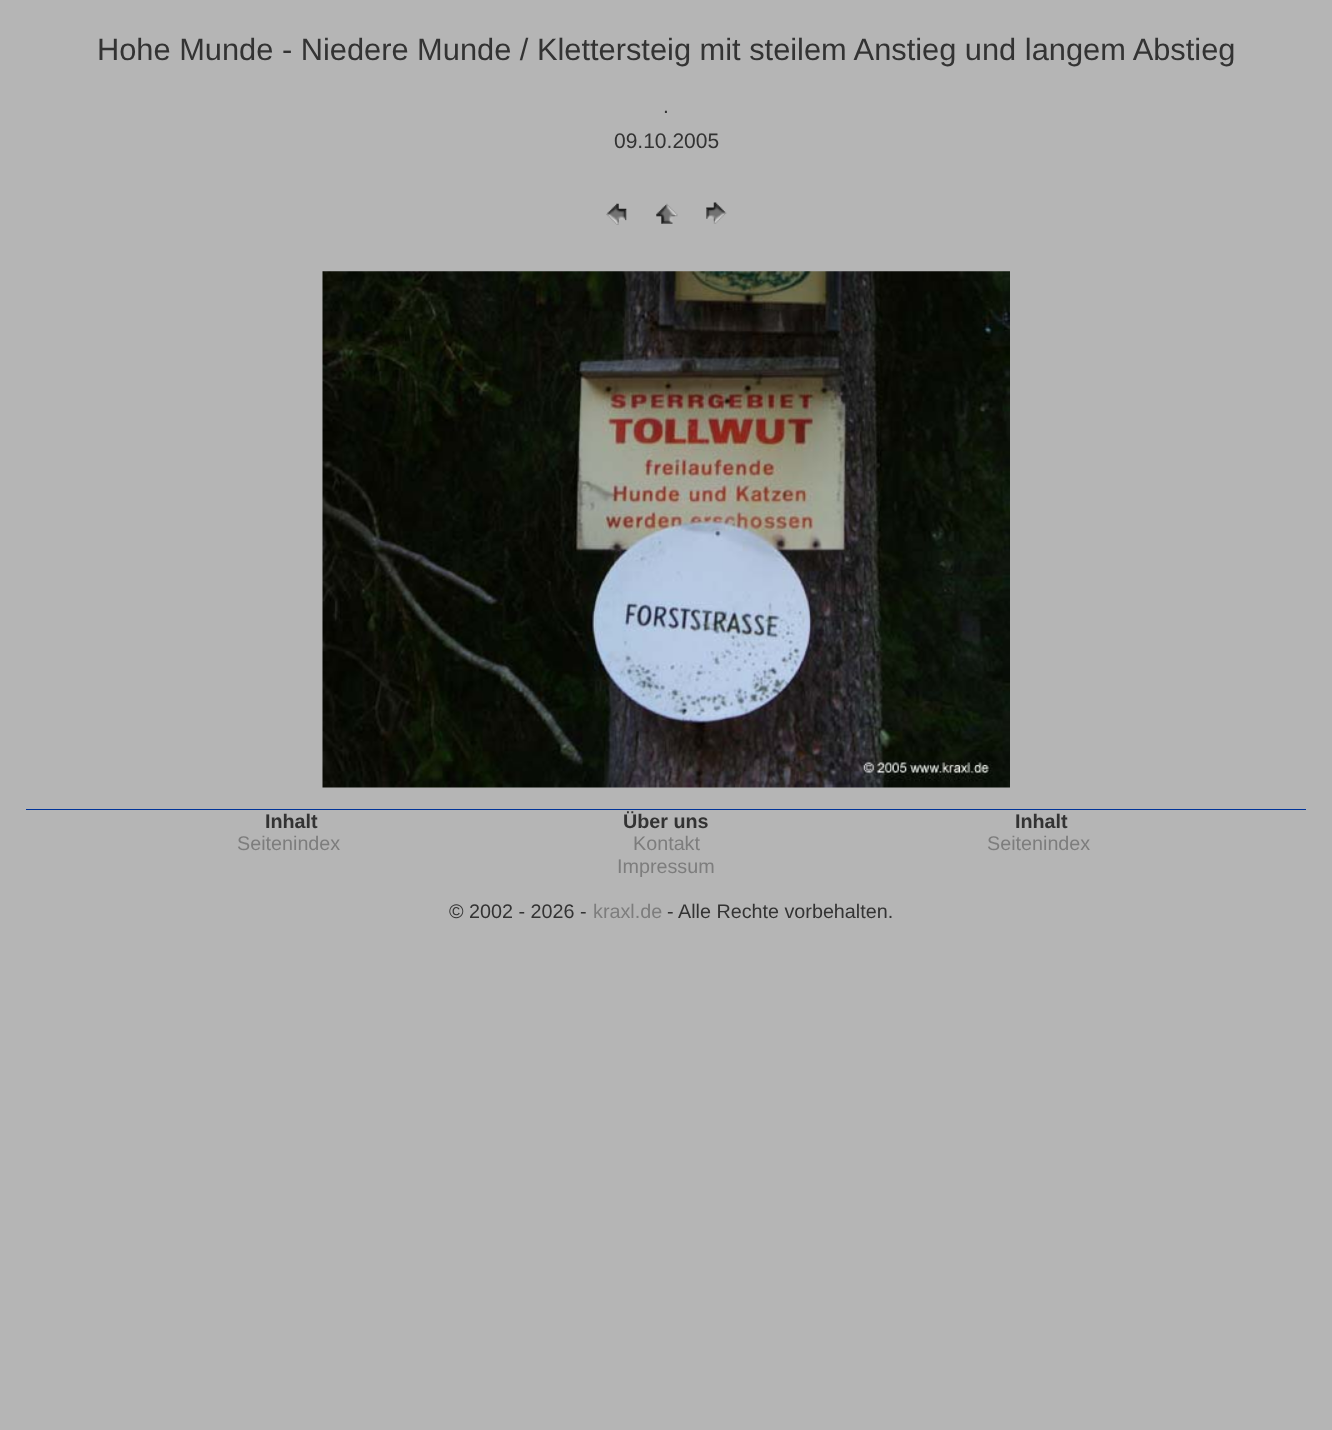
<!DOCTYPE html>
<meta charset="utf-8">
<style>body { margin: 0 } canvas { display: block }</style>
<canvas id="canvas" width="1332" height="1430"></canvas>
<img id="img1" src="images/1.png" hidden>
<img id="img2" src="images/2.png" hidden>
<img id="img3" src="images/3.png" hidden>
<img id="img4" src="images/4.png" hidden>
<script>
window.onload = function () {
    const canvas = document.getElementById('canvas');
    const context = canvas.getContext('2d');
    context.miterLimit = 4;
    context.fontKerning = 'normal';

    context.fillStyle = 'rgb(181, 181, 181)';
    context.fillRect(0, 0, 1332, 1430);
    context.drawImage(document.getElementById('img1'), 606, 203, 21, 22);
    context.drawImage(document.getElementById('img2'), 656, 203, 22, 21);
    context.drawImage(document.getElementById('img3'), 706, 202, 21, 22);
    context.drawImage(document.getElementById('img4'), 322, 271, 688, 517);
    context.fillStyle = 'rgb(0, 51, 153)';
    context.fillRect(26, 809, 1280, 1);
    context.font = '30.8px Liberation Sans';
    context.fillStyle = 'rgb(51, 51, 51)';
    context.fillText('Hohe Munde - Niedere Munde / Klettersteig mit steilem Anstieg und langem Abstieg', 97, 60);
    context.font = '21px Liberation Sans';
    context.fillText('.', 663, 113);
    context.fillText('09.10.2005', 614, 148);
    context.font = 'bold 19.75px Liberation Sans';
    context.fillText('Inhalt', 265, 828);
    context.font = '19.75px Liberation Sans';
    context.fillStyle = 'rgb(125, 125, 125)';
    context.fillText('Seitenindex', 237, 850);
    context.font = 'bold 19.75px Liberation Sans';
    context.fillStyle = 'rgb(51, 51, 51)';
    context.fillText('Über uns', 623, 828);
    context.font = '19.75px Liberation Sans';
    context.fillStyle = 'rgb(125, 125, 125)';
    context.fillText('Kontakt', 633, 850);
    context.fillText('Impressum', 617, 873);
    context.font = 'bold 19.75px Liberation Sans';
    context.fillStyle = 'rgb(51, 51, 51)';
    context.fillText('Inhalt', 1015, 828);
    context.font = '19.75px Liberation Sans';
    context.fillStyle = 'rgb(125, 125, 125)';
    context.fillText('Seitenindex', 987, 850);
    context.fillStyle = 'rgb(51, 51, 51)';
    context.fillText('© 2002 - 2026 -', 449, 918);
    context.fillStyle = 'rgb(125, 125, 125)';
    context.fillText('kraxl.de', 593, 918);
    context.fillStyle = 'rgb(51, 51, 51)';
    context.fillText('- Alle Rechte vorbehalten.', 667, 918);
};
</script>
